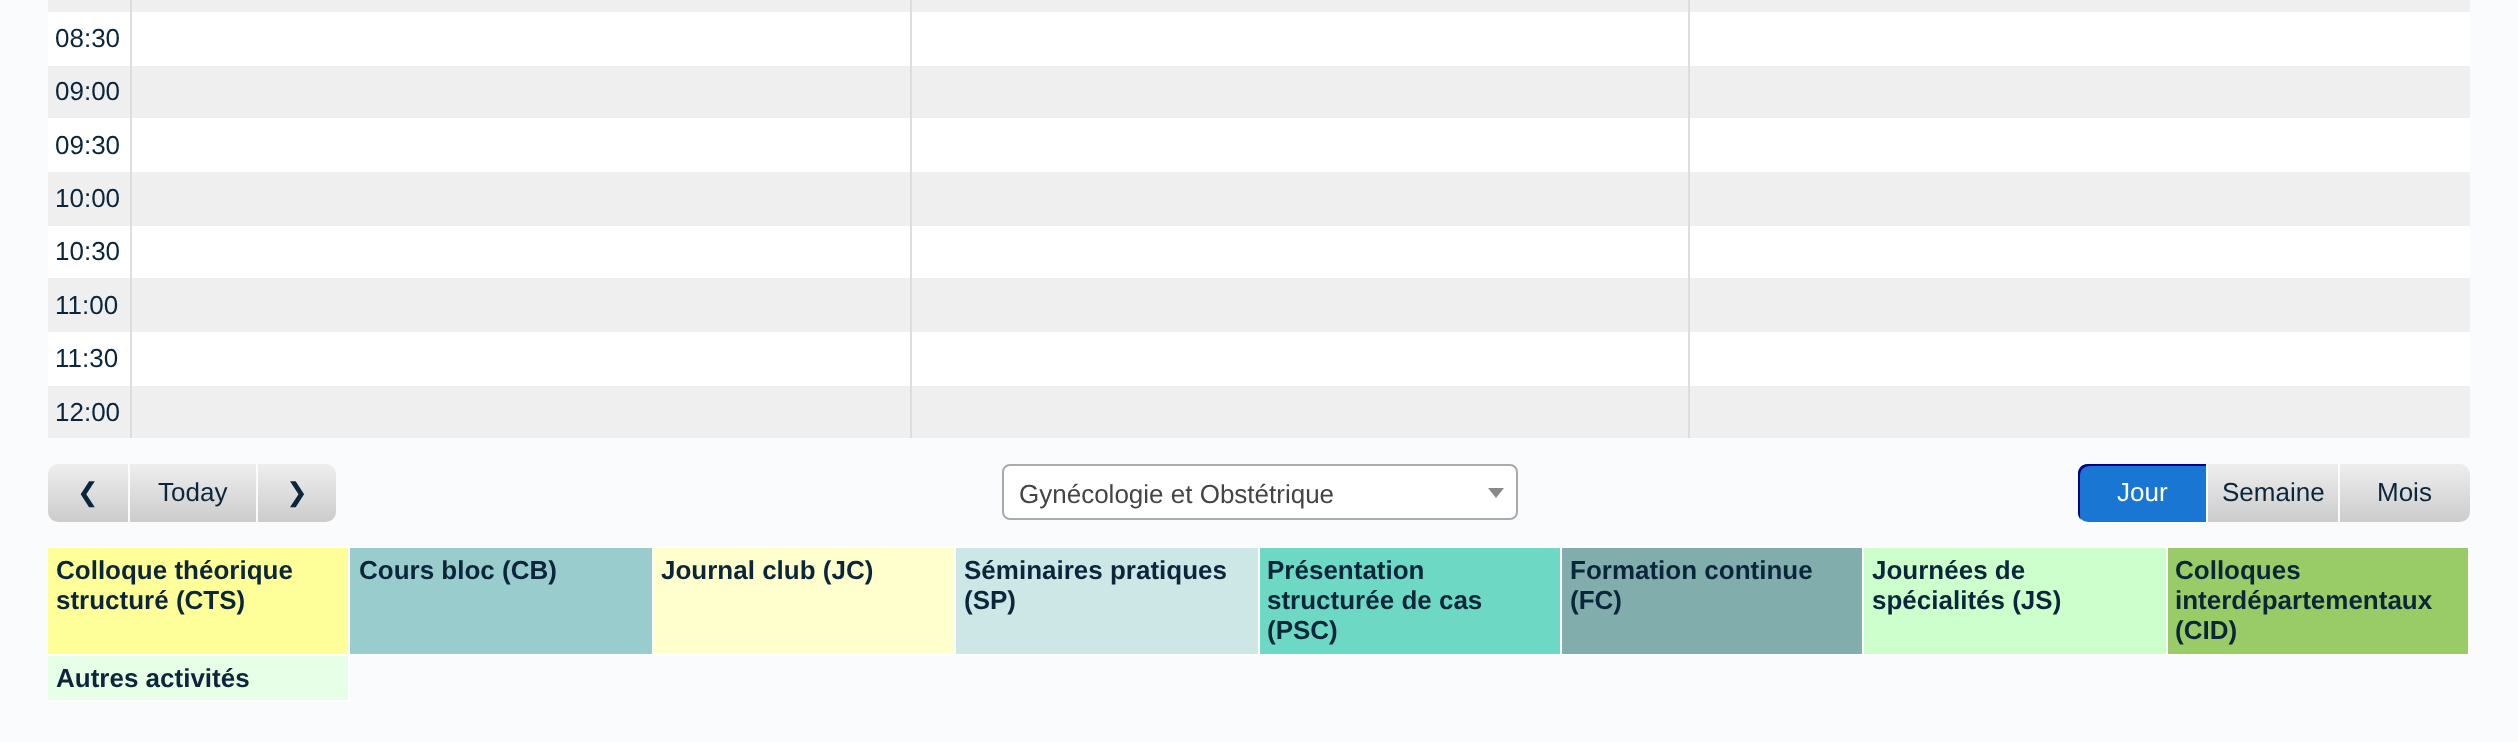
<!DOCTYPE html>
<meta charset="utf-8">
<style>body { margin: 0 } canvas { display: block }</style>
<canvas id="canvas" width="2518" height="742"></canvas>
<script>
window.onload = function () {
    const canvas = document.getElementById('canvas');
    const context = canvas.getContext('2d');
    context.miterLimit = 4;
    context.fontKerning = 'normal';
    let gradient;

    context.fillStyle = 'rgb(249, 251, 252)';
    context.fillRect(0, 0, 2518, 742);
    context.fillStyle = 'rgb(239, 239, 239)';
    context.fillRect(48, 0, 82, 12);
    context.fillStyle = 'rgb(221, 221, 221)';
    context.fillRect(130, 0, 2, 438);
    context.fillStyle = 'rgb(239, 239, 239)';
    context.fillRect(132, 0, 778, 12);
    context.fillStyle = 'rgb(221, 221, 221)';
    context.fillRect(910, 0, 2, 438);
    context.fillStyle = 'rgb(239, 239, 239)';
    context.fillRect(912, 0, 776, 12);
    context.fillStyle = 'rgb(221, 221, 221)';
    context.fillRect(1688, 0, 2, 438);
    context.fillStyle = 'rgb(239, 239, 239)';
    context.fillRect(1690, 0, 780, 12);
    context.fillStyle = 'rgb(255, 255, 255)';
    context.fillRect(48, 12, 82, 54);
    context.fillRect(132, 12, 778, 54);
    context.fillRect(912, 12, 776, 54);
    context.fillRect(1690, 12, 780, 54);
    context.fillStyle = 'rgb(239, 239, 239)';
    context.fillRect(48, 66, 82, 52);
    context.fillRect(132, 66, 778, 52);
    context.fillRect(912, 66, 776, 52);
    context.fillRect(1690, 66, 780, 52);
    context.fillStyle = 'rgb(255, 255, 255)';
    context.fillRect(48, 118, 82, 54);
    context.fillRect(132, 118, 778, 54);
    context.fillRect(912, 118, 776, 54);
    context.fillRect(1690, 118, 780, 54);
    context.fillStyle = 'rgb(239, 239, 239)';
    context.fillRect(48, 172, 82, 54);
    context.fillRect(132, 172, 778, 54);
    context.fillRect(912, 172, 776, 54);
    context.fillRect(1690, 172, 780, 54);
    context.fillStyle = 'rgb(255, 255, 255)';
    context.fillRect(48, 226, 82, 52);
    context.fillRect(132, 226, 778, 52);
    context.fillRect(912, 226, 776, 52);
    context.fillRect(1690, 226, 780, 52);
    context.fillStyle = 'rgb(239, 239, 239)';
    context.fillRect(48, 278, 82, 54);
    context.fillRect(132, 278, 778, 54);
    context.fillRect(912, 278, 776, 54);
    context.fillRect(1690, 278, 780, 54);
    context.fillStyle = 'rgb(255, 255, 255)';
    context.fillRect(48, 332, 82, 54);
    context.fillRect(132, 332, 778, 54);
    context.fillRect(912, 332, 776, 54);
    context.fillRect(1690, 332, 780, 54);
    context.fillStyle = 'rgb(239, 239, 239)';
    context.fillRect(48, 386, 82, 52);
    context.fillRect(132, 386, 778, 52);
    context.fillRect(912, 386, 776, 52);
    context.fillRect(1690, 386, 780, 52);
    gradient = context.createLinearGradient(88, 464, 88, 522);
    gradient.addColorStop(0, 'rgb(238, 238, 238)');
    gradient.addColorStop(1, 'rgb(204, 204, 204)');
    context.fillStyle = gradient;
    context.beginPath();
    context.roundRect(48, 464, 82, 58, [10, 0, 0, 10]);
    context.fill();
    context.fillStyle = 'rgb(249, 251, 252)';
    context.fillRect(128, 464, 2, 58);
    gradient = context.createLinearGradient(193, 464, 193, 522);
    gradient.addColorStop(0, 'rgb(238, 238, 238)');
    gradient.addColorStop(1, 'rgb(204, 204, 204)');
    context.fillStyle = gradient;
    context.fillRect(130, 464, 126, 58);
    gradient = context.createLinearGradient(297, 464, 297, 522);
    gradient.addColorStop(0, 'rgb(238, 238, 238)');
    gradient.addColorStop(1, 'rgb(204, 204, 204)');
    context.fillStyle = gradient;
    context.beginPath();
    context.roundRect(258, 464, 78, 58, [0, 10, 10, 0]);
    context.fill();
    context.fillStyle = 'rgb(255, 255, 255)';
    context.beginPath();
    context.roundRect(1003, 465, 514, 54, 7);
    context.fill();
    context.strokeStyle = 'rgb(170, 170, 170)';
    context.lineWidth = 2;
    context.stroke();
    context.fillStyle = 'rgb(136, 136, 136)';
    context.beginPath();
    context.moveTo(1488, 488);
    context.lineTo(1504, 488);
    context.lineTo(1496, 498);
    context.closePath();
    context.fill();
    context.fillStyle = 'rgb(25, 118, 210)';
    context.beginPath();
    context.roundRect(2078, 464, 130, 58, [10, 0, 0, 10]);
    context.fill();
    context.fillStyle = 'rgb(0, 0, 139)';
    context.beginPath();
    context.moveTo(2090, 466);
    context.lineTo(2206, 466);
    context.lineTo(2206, 464);
    context.lineTo(2088, 464);
    context.bezierCurveTo(2082, 464, 2078, 468, 2078, 474);
    context.lineTo(2078, 512);
    context.bezierCurveTo(2078, 515, 2079, 518, 2081, 520);
    context.bezierCurveTo(2080, 518, 2080, 516, 2080, 514);
    context.lineTo(2080, 476);
    context.bezierCurveTo(2080, 470, 2084, 466, 2090, 466);
    context.closePath();
    context.fill();
    context.fillStyle = 'rgb(249, 251, 252)';
    context.fillRect(2206, 464, 2, 58);
    gradient = context.createLinearGradient(2273, 464, 2273, 522);
    gradient.addColorStop(0, 'rgb(238, 238, 238)');
    gradient.addColorStop(1, 'rgb(204, 204, 204)');
    context.fillStyle = gradient;
    context.fillRect(2208, 464, 130, 58);
    gradient = context.createLinearGradient(2405, 464, 2405, 522);
    gradient.addColorStop(0, 'rgb(238, 238, 238)');
    gradient.addColorStop(1, 'rgb(204, 204, 204)');
    context.fillStyle = gradient;
    context.beginPath();
    context.roundRect(2340, 464, 130, 58, [0, 10, 10, 0]);
    context.fill();
    context.fillStyle = 'rgb(255, 255, 153)';
    context.fillRect(48, 548, 300, 106);
    context.save();
    context.beginPath();
    context.rect(48, 0, 2422, 702);
    context.clip();
    context.strokeStyle = 'rgb(255, 255, 255)';
    context.strokeRect(47, 547, 302, 108);
    context.restore();
    context.fillStyle = 'rgb(153, 204, 204)';
    context.beginPath();
    context.rect(349, 547, 304, 108);
    context.fill();
    context.strokeStyle = 'rgb(255, 255, 255)';
    context.stroke();
    context.fillStyle = 'rgb(255, 255, 205)';
    context.beginPath();
    context.rect(653, 547, 302, 108);
    context.fill();
    context.stroke();
    context.fillStyle = 'rgb(205, 230, 230)';
    context.beginPath();
    context.rect(955, 547, 304, 108);
    context.fill();
    context.stroke();
    context.fillStyle = 'rgb(109, 217, 196)';
    context.beginPath();
    context.rect(1259, 547, 302, 108);
    context.fill();
    context.stroke();
    context.fillStyle = 'rgb(130, 173, 173)';
    context.beginPath();
    context.rect(1561, 547, 302, 108);
    context.fill();
    context.stroke();
    context.fillStyle = 'rgb(204, 255, 204)';
    context.beginPath();
    context.rect(1863, 547, 304, 108);
    context.fill();
    context.stroke();
    context.fillStyle = 'rgb(153, 204, 102)';
    context.beginPath();
    context.rect(2167, 547, 302, 108);
    context.fill();
    context.stroke();
    context.fillStyle = 'rgb(230, 255, 230)';
    context.fillRect(48, 656, 300, 44);
    context.save();
    context.beginPath();
    context.rect(48, 0, 2422, 702);
    context.clip();
    context.strokeRect(47, 655, 302, 46);
    context.restore();
    context.font = '26px Liberation Sans';
    context.fillStyle = 'rgb(11, 38, 59)';
    context.fillText('08:30', 55, 47);
    context.fillText('09:00', 55, 100);
    context.fillText('09:30', 55, 154);
    context.fillText('10:00', 55, 207);
    context.fillText('10:30', 55, 260);
    context.fillText('11:00', 55, 314);
    context.fillText('11:30', 55, 367);
    context.fillText('12:00', 55, 421);
    context.font = '26px DejaVu Sans';
    context.fillText('❮', 77, 501);
    context.font = '26px Liberation Sans';
    context.fillText('Today', 158, 501);
    context.font = '26px DejaVu Sans';
    context.fillText('❯', 286, 501);
    context.font = '26px Liberation Sans';
    context.fillStyle = 'rgb(68, 68, 68)';
    context.fillText('Gynécologie et Obstétrique', 1019, 503);
    context.fillStyle = 'rgb(255, 255, 255)';
    context.fillText('Jour', 2117, 501);
    context.fillStyle = 'rgb(11, 38, 59)';
    context.fillText('Semaine', 2222, 501);
    context.fillText('Mois', 2377, 501);
    context.font = 'bold 26px Liberation Sans';
    context.fillText('Colloque théorique', 56, 579);
    context.fillText('structuré (CTS)', 56, 609);
    context.fillText('Cours bloc (CB)', 359, 579);
    context.fillText('Journal club (JC)', 661, 579);
    context.fillText('Séminaires pratiques', 964, 579);
    context.fillText('(SP)', 964, 609);
    context.fillText('Présentation', 1267, 579);
    context.fillText('structurée de cas', 1267, 609);
    context.fillText('(PSC)', 1267, 639);
    context.fillText('Formation continue', 1570, 579);
    context.fillText('(FC)', 1570, 609);
    context.fillText('Journées de', 1872, 579);
    context.fillText('spécialités (JS)', 1872, 609);
    context.fillText('Colloques', 2175, 579);
    context.fillText('interdépartementaux', 2175, 609);
    context.fillText('(CID)', 2175, 639);
    context.fillText('Autres activités', 56, 687);
};
</script>
